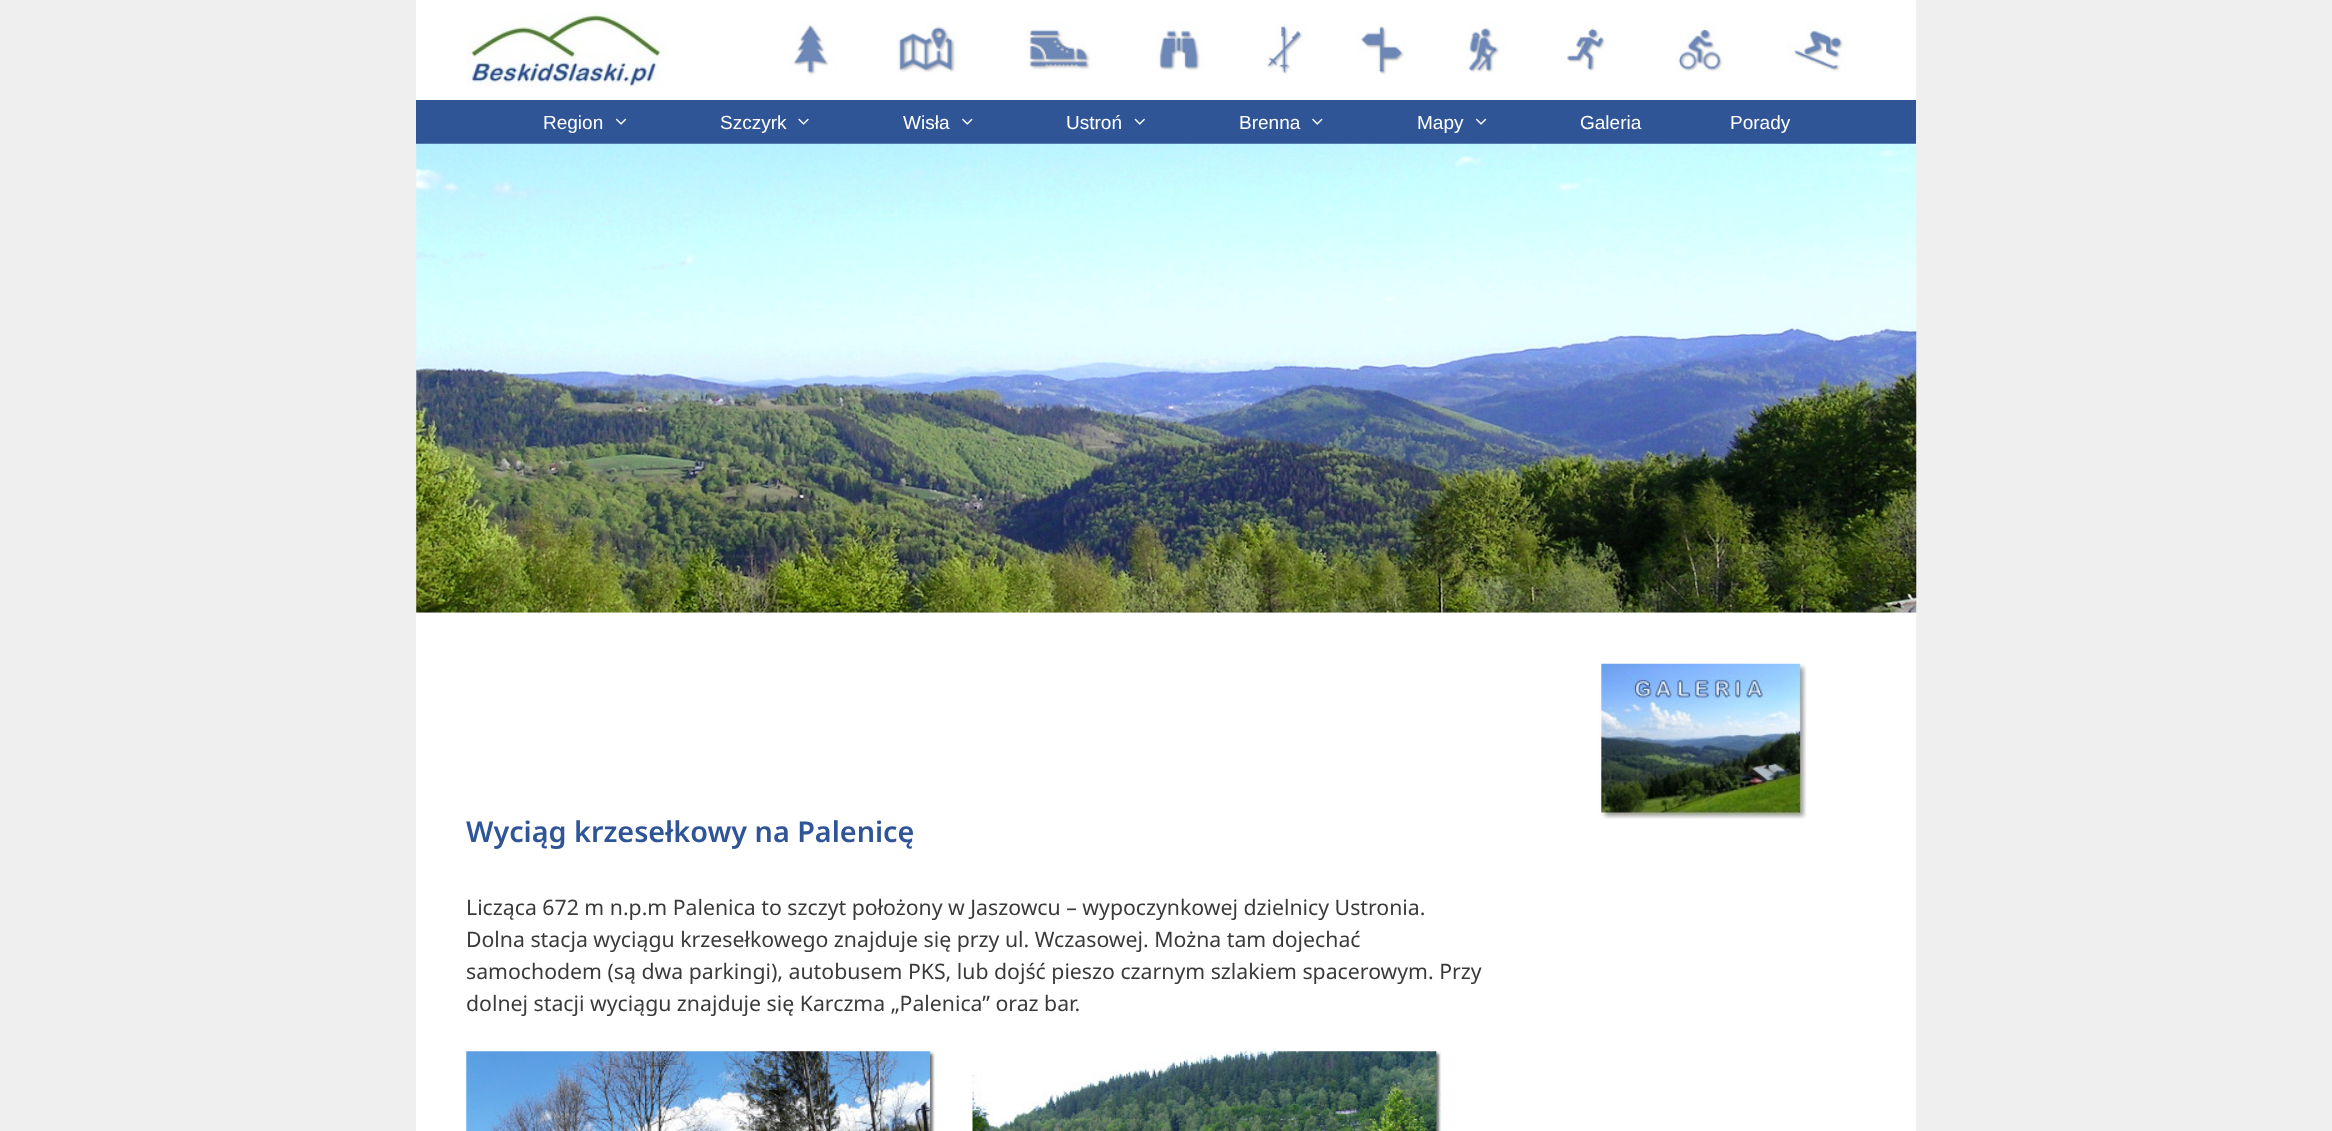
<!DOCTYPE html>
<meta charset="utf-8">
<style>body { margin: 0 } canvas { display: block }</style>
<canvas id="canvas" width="2332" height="1131"></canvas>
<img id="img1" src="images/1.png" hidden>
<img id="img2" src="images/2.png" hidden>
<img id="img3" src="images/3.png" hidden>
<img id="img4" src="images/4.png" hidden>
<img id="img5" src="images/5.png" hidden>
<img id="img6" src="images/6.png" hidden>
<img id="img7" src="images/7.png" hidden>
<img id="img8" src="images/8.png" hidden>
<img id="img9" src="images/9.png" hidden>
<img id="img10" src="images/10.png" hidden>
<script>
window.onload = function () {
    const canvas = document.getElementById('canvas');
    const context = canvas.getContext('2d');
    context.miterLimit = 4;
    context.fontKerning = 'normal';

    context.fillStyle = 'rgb(239, 239, 239)';
    context.fillRect(0, 0, 2332, 1131);
    context.fillStyle = 'rgb(255, 255, 255)';
    context.fillRect(416, 0, 1500, 100);
    context.drawImage(document.getElementById('img1'), 786, 13, 1131, 74);
    context.drawImage(document.getElementById('img2'), 466, 12, 199, 76);
    context.fillStyle = 'rgb(47, 85, 151)';
    context.fillRect(416, 100, 1500, 44);
    context.drawImage(document.getElementById('img3'), 615, 118, 12, 7);
    context.drawImage(document.getElementById('img4'), 798, 118, 11, 7);
    context.drawImage(document.getElementById('img5'), 962, 118, 11, 7);
    context.drawImage(document.getElementById('img6'), 1134, 118, 11, 7);
    context.drawImage(document.getElementById('img5'), 1312, 118, 11, 7);
    context.drawImage(document.getElementById('img3'), 1475, 118, 12, 7);
    context.drawImage(document.getElementById('img7'), 416, 143, 1501, 470);
    context.fillStyle = 'rgb(255, 255, 255)';
    context.fillRect(416, 613, 1500, 518);
    context.drawImage(document.getElementById('img8'), 1597, 663, 210, 156);
    context.drawImage(document.getElementById('img9'), 466, 1051, 469, 80);
    context.drawImage(document.getElementById('img10'), 972, 1051, 470, 80);
    context.font = '19px Liberation Sans';
    context.fillText('Region', 543, 129);
    context.fillText('Szczyrk', 720, 129);
    context.fillText('Wisła', 903, 129);
    context.fillText('Ustroń', 1066, 129);
    context.fillText('Brenna', 1239, 129);
    context.fillText('Mapy', 1417, 129);
    context.fillText('Galeria', 1580, 129);
    context.fillText('Porady', 1730, 129);
    context.font = '600 28.75px Noto Sans';
    context.fillStyle = 'rgb(47, 85, 151)';
    context.fillText('Wyciąg krzesełkowy na Palenicę', 466, 842);
    context.font = '21.25px Noto Sans';
    context.fillStyle = 'rgb(58, 58, 58)';
    context.fillText('Licząca 672 m n.p.m Palenica to szczyt położony w Jaszowcu – wypoczynkowej dzielnicy Ustronia.', 466, 915);
    context.fillText('Dolna stacja wyciągu krzesełkowego znajduje się przy ul. Wczasowej. Można tam dojechać', 466, 947);
    context.fillText('samochodem (są dwa parkingi), autobusem PKS, lub dojść pieszo czarnym szlakiem spacerowym. Przy', 466, 979);
    context.fillText('dolnej stacji wyciągu znajduje się Karczma „Palenica” oraz bar.', 466, 1011);
};
</script>
